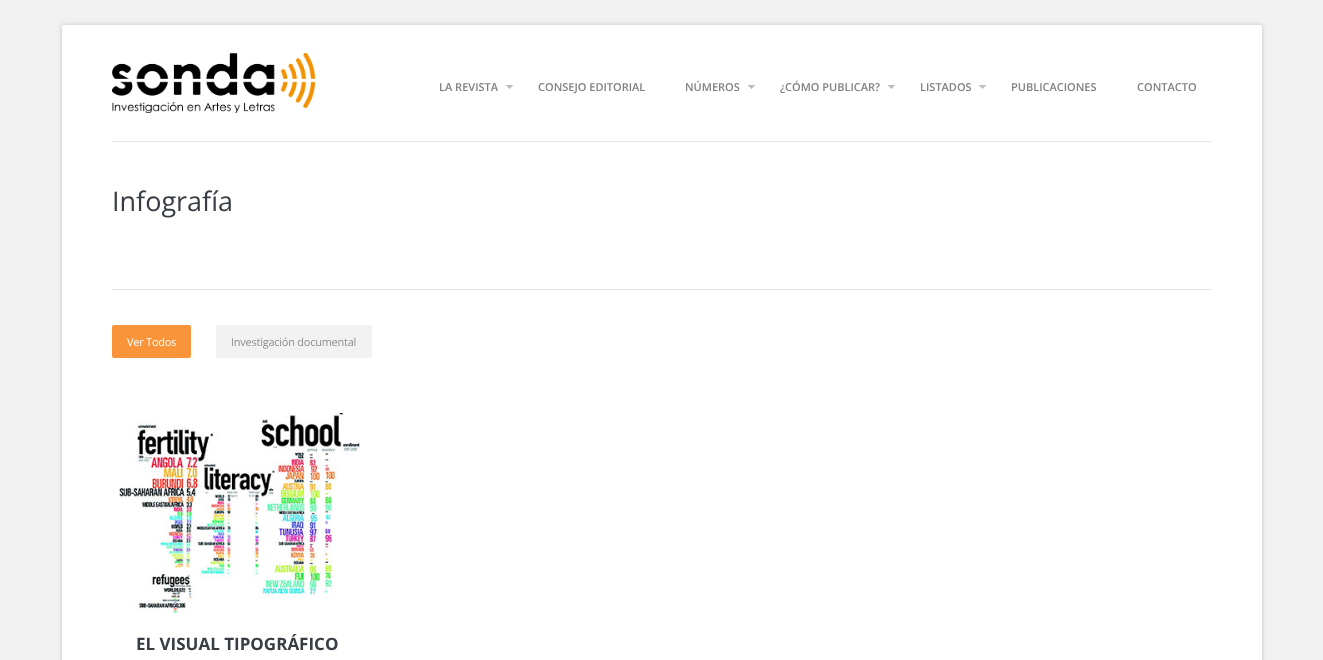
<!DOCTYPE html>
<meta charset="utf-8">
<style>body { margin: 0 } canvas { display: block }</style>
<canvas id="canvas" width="1323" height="660"></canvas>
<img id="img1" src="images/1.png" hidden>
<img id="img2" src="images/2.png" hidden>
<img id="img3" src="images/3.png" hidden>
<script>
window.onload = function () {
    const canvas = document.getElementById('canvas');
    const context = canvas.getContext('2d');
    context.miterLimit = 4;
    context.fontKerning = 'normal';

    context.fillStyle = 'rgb(241, 241, 241)';
    context.fillRect(0, 0, 1323, 660);
    context.fillStyle = 'rgba(0, 0, 0, 0.2)';
    context.filter = 'blur(2px)';
    context.beginPath();
    context.roundRect(62, 25, 1200, 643, 2);
    context.fill();
    context.filter = 'none';
    context.fillStyle = 'rgb(255, 255, 255)';
    context.beginPath();
    context.roundRect(62, 25, 1200, 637, 2);
    context.fill();
    context.fillStyle = 'rgb(231, 231, 231)';
    context.fillRect(112, 141, 1100, 1);
    context.drawImage(document.getElementById('img1'), 112, 53, 203, 60);
    context.drawImage(document.getElementById('img2'), 506, 85, 7, 4);
    context.drawImage(document.getElementById('img2'), 748, 85, 7, 4);
    context.drawImage(document.getElementById('img2'), 888, 85, 7, 4);
    context.drawImage(document.getElementById('img2'), 979, 85, 7, 4);
    context.fillRect(112, 289, 1100, 1);
    context.fillStyle = 'rgb(249, 148, 59)';
    context.beginPath();
    context.roundRect(112, 325, 79, 33, 2);
    context.fill();
    context.fillStyle = 'rgb(242, 242, 242)';
    context.beginPath();
    context.roundRect(216, 325, 156, 33, 2);
    context.fill();
    context.drawImage(document.getElementById('img3'), 119, 413, 241, 200);
    context.font = '600 11px Open Sans';
    context.fillStyle = 'rgb(128, 128, 128)';
    context.fillText('LA REVISTA', 439, 91);
    context.fillText('CONSEJO EDITORIAL', 538, 91);
    context.fillText('NÚMEROS', 685, 91);
    context.fillText('¿CÓMO PUBLICAR?', 780, 91);
    context.fillText('LISTADOS', 920, 91);
    context.fillText('PUBLICACIONES', 1011, 91);
    context.fillText('CONTACTO', 1137, 91);
    context.font = '27px Open Sans';
    context.fillStyle = 'rgb(55, 61, 67)';
    context.fillText('Infografía', 112, 211);
    context.letterSpacing = '-0.25px';
    context.font = '11px Open Sans';
    context.fillStyle = 'rgb(255, 255, 255)';
    context.fillText('Ver Todos', 127, 346);
    context.fillStyle = 'rgb(142, 142, 142)';
    context.fillText('Investigación documental', 231, 346);
    context.letterSpacing = '0px';
    context.font = 'bold 17px Open Sans';
    context.fillStyle = 'rgb(55, 61, 67)';
    context.fillText('EL VISUAL TIPOGRÁFICO', 136, 650);
};
</script>
